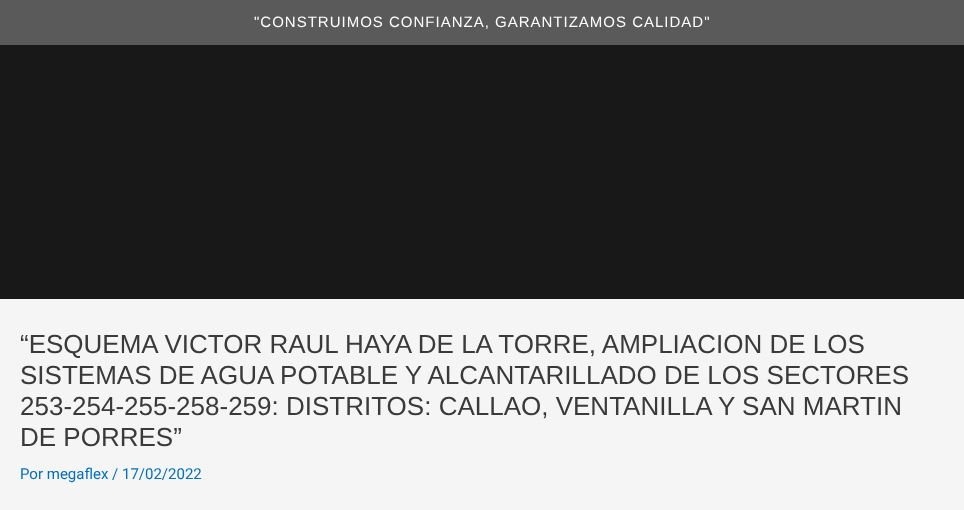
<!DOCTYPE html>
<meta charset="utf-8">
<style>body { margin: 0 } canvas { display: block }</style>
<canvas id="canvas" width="964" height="510"></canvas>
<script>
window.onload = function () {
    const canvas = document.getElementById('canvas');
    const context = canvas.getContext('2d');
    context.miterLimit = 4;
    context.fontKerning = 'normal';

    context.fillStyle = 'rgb(245, 245, 245)';
    context.fillRect(0, 0, 964, 510);
    context.fillStyle = 'rgb(90, 90, 90)';
    context.fillRect(0, 0, 964, 45);
    context.fillStyle = 'rgb(24, 24, 24)';
    context.fillRect(0, 45, 964, 254);
    context.letterSpacing = '1px';
    context.font = '15px Liberation Sans';
    context.fillStyle = 'rgb(255, 255, 255)';
    context.fillText('"CONSTRUIMOS CONFIANZA, GARANTIZAMOS CALIDAD"', 254, 27);
    context.letterSpacing = '0px';
    context.font = '26px Liberation Sans';
    context.fillStyle = 'rgb(58, 58, 58)';
    context.fillText('“ESQUEMA VICTOR RAUL HAYA DE LA TORRE, AMPLIACION DE LOS', 20, 353);
    context.fillText('SISTEMAS DE AGUA POTABLE Y ALCANTARILLADO DE LOS SECTORES', 20, 384);
    context.fillText('253-254-255-258-259: DISTRITOS: CALLAO, VENTANILLA Y SAN MARTIN', 20, 415);
    context.fillText('DE PORRES”', 20, 446);
    context.font = '15px Roboto';
    context.fillStyle = 'rgb(1, 112, 185)';
    context.fillText('Por megaflex / 17/02/2022', 20, 479);
};
</script>
